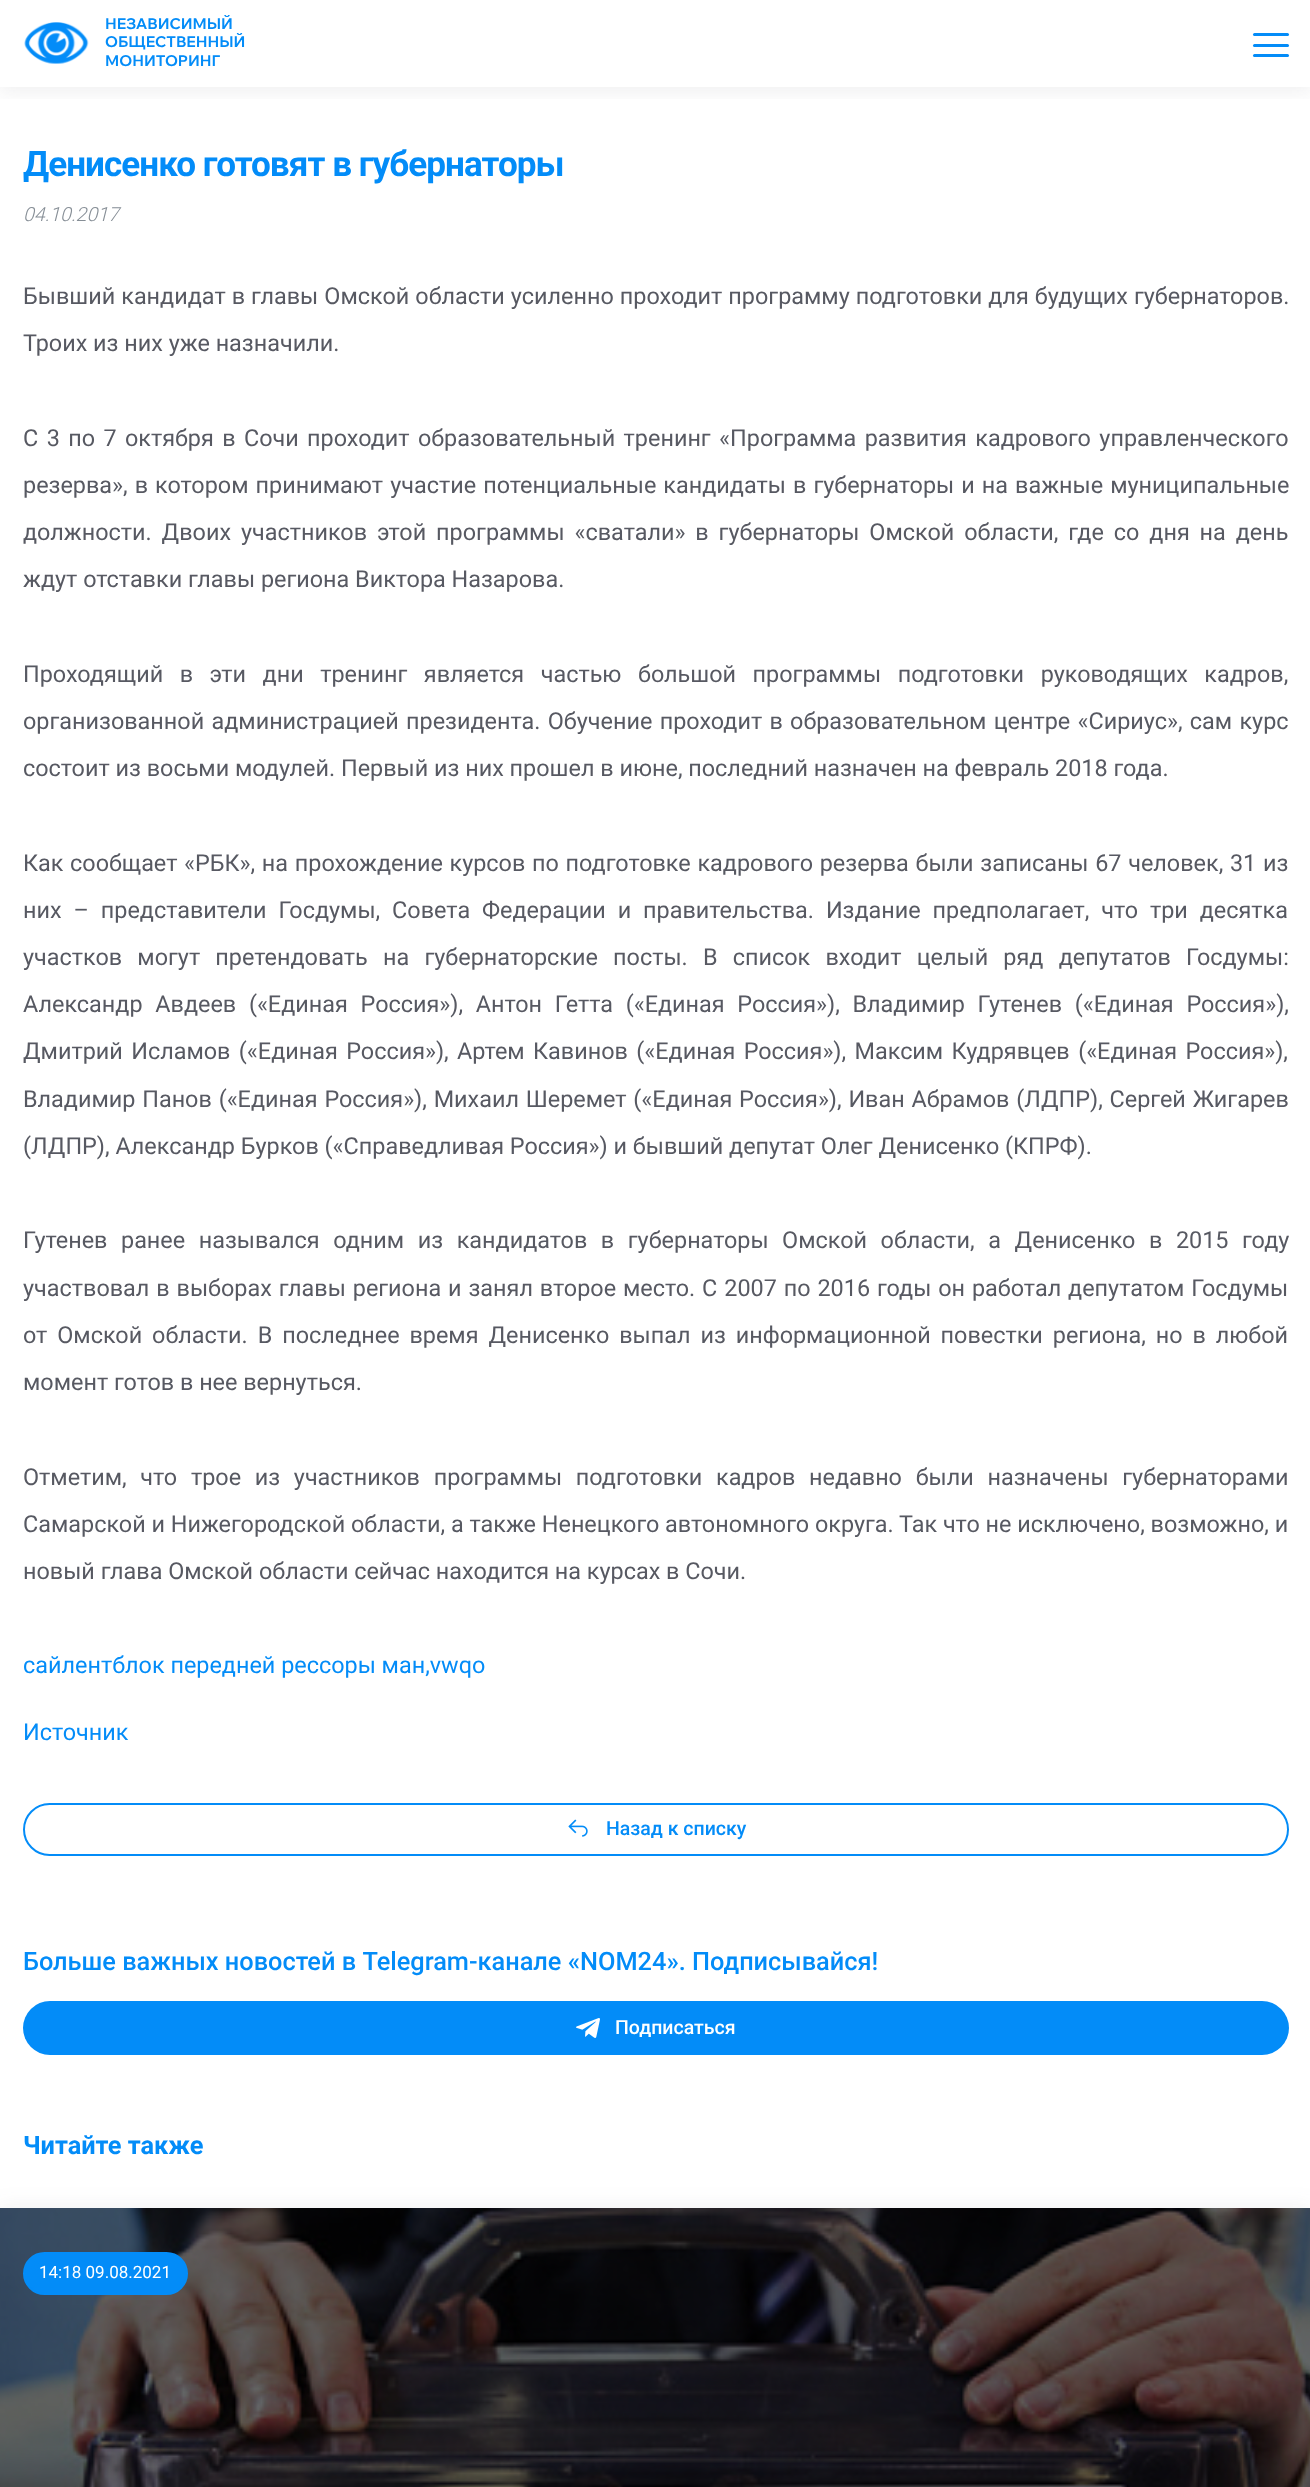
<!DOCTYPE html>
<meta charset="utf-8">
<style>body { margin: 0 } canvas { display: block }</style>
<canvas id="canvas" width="1310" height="2487"></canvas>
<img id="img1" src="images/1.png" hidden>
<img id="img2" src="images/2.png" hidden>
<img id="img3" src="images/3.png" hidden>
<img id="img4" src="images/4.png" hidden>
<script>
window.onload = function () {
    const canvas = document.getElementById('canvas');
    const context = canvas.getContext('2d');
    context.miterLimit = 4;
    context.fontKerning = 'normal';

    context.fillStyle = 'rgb(255, 255, 255)';
    context.fillRect(0, 0, 1310, 2487);
    context.save();
    context.beginPath();
    context.rect(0, 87, 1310, 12);
    context.clip();
    context.fillStyle = 'rgba(81, 77, 92, 0.1)';
    context.filter = 'blur(11px)';
    context.beginPath();
    context.rect(-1, 0, 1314, 90);
    context.fill();
    context.filter = 'none';
    context.restore();
    context.drawImage(document.getElementById('img1'), 24, 22, 65, 42);
    context.fillStyle = 'rgb(3, 140, 248)';
    context.beginPath();
    context.roundRect(1253, 44, 36, 3, 1.5);
    context.fill();
    context.beginPath();
    context.roundRect(1253, 33, 36, 3, 1.5);
    context.fill();
    context.beginPath();
    context.roundRect(1253, 54, 36, 3, 1.5);
    context.fill();
    context.beginPath();
    context.roundRect(24, 1804, 1264, 51, 25.5);
    context.strokeStyle = 'rgb(3, 140, 248)';
    context.lineWidth = 2;
    context.stroke();
    context.drawImage(document.getElementById('img2'), 568, 1819, 20, 18);
    context.beginPath();
    context.roundRect(23, 2001, 1266, 54, 27);
    context.fill();
    context.drawImage(document.getElementById('img3'), 576, 2018, 24, 20);
    context.fillStyle = 'rgba(81, 77, 92, 0.08)';
    context.filter = 'blur(11px)';
    context.beginPath();
    context.rect(-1, 2207, 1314, 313);
    context.fill();
    context.filter = 'none';
    context.drawImage(document.getElementById('img4'), 0, 2208, 1310, 279);
    context.fillStyle = 'rgb(3, 140, 248)';
    context.beginPath();
    context.roundRect(24, 2253, 163, 41, 20.5);
    context.fill();
    context.stroke();
    context.font = 'bold 15px Wix Madefor Display';
    context.fillText('НЕЗАВИСИМЫЙ', 105, 29);
    context.fillText('ОБЩЕСТВЕННЫЙ', 105, 47);
    context.fillText('МОНИТОРИНГ', 105, 66);
    context.letterSpacing = '-0.95px';
    context.font = 'bold 35.1px Roboto';
    context.fillText('Денисенко готовят в губернаторы', 23, 176);
    context.letterSpacing = '0px';
    context.font = 'italic 300 19.5px Roboto';
    context.fillStyle = 'rgb(134, 142, 150)';
    context.fillText('04.10.2017', 23, 221);
    context.wordSpacing = '0.25px';
    context.font = '23.4px Roboto';
    context.fillStyle = 'rgb(87, 89, 98)';
    context.fillText('Бывший кандидат в главы Омской области усиленно проходит программу подготовки для будущих губернаторов.', 23, 304);
    context.wordSpacing = '0px';
    context.fillText('Троих из них уже назначили.', 23, 351);
    context.wordSpacing = '2.6px';
    context.fillText('С 3 по 7 октября в Сочи проходит образовательный тренинг «Программа развития кадрового управленческого', 23, 446);
    context.wordSpacing = '1.25px';
    context.fillText('резерва», в котором принимают участие потенциальные кандидаты в губернаторы и на важные муниципальные', 23, 493);
    context.wordSpacing = '4.1px';
    context.fillText('должности. Двоих участников этой программы «сватали» в губернаторы Омской области, где со дня на день', 23, 540);
    context.wordSpacing = '0px';
    context.fillText('ждут отставки главы региона Виктора Назарова.', 23, 587);
    context.wordSpacing = '10.75px';
    context.fillText('Проходящий в эти дни тренинг является частью большой программы подготовки руководящих кадров,', 23, 682);
    context.wordSpacing = '1.5px';
    context.fillText('организованной администрацией президента. Обучение проходит в образовательном центре «Сириус», сам курс', 23, 729);
    context.wordSpacing = '0px';
    context.fillText('состоит из восьми модулей. Первый из них прошел в июне, последний назначен на февраль 2018 года.', 23, 776);
    context.wordSpacing = '0.9px';
    context.fillText('Как сообщает «РБК», на прохождение курсов по подготовке кадрового резерва были записаны 67 человек, 31 из', 23, 871);
    context.wordSpacing = '6.1px';
    context.fillText('них – представители Госдумы, Совета Федерации и правительства. Издание предполагает, что три десятка', 23, 918);
    context.wordSpacing = '9.4px';
    context.fillText('участков могут претендовать на губернаторские посты. В список входит целый ряд депутатов Госдумы:', 23, 965);
    context.wordSpacing = '6.9px';
    context.fillText('Александр Авдеев («Единая Россия»), Антон Гетта («Единая Россия»), Владимир Гутенев («Единая Россия»),', 23, 1012);
    context.wordSpacing = '2.6px';
    context.fillText('Дмитрий Исламов («Единая Россия»), Артем Кавинов («Единая Россия»), Максим Кудрявцев («Единая Россия»),', 23, 1059);
    context.wordSpacing = '1px';
    context.fillText('Владимир Панов («Единая Россия»), Михаил Шеремет («Единая Россия»), Иван Абрамов (ЛДПР), Сергей Жигарев', 23, 1107);
    context.wordSpacing = '0px';
    context.fillText('(ЛДПР), Александр Бурков («Справедливая Россия») и бывший депутат Олег Денисенко (КПРФ).', 23, 1154);
    context.wordSpacing = '7.75px';
    context.fillText('Гутенев ранее назывался одним из кандидатов в губернаторы Омской области, а Денисенко в 2015 году', 23, 1248);
    context.wordSpacing = '1.1px';
    context.fillText('участвовал в выборах главы региона и занял второе место. С 2007 по 2016 годы он работал депутатом Госдумы', 23, 1296);
    context.wordSpacing = '4.1px';
    context.fillText('от Омской области. В последнее время Денисенко выпал из информационной повестки региона, но в любой', 23, 1343);
    context.wordSpacing = '0px';
    context.fillText('момент готов в нее вернуться.', 23, 1390);
    context.wordSpacing = '7.9px';
    context.fillText('Отметим, что трое из участников программы подготовки кадров недавно были назначены губернаторами', 23, 1485);
    context.wordSpacing = '0px';
    context.fillText('Самарской и Нижегородской области, а также Ненецкого автономного округа. Так что не исключено, возможно, и', 23, 1532);
    context.fillText('новый глава Омской области сейчас находится на курсах в Сочи.', 23, 1579);
    context.fillStyle = 'rgb(3, 140, 248)';
    context.fillText('сайлентблок передней рессоры ман,vwqo', 23, 1673);
    context.fillText('Источник', 23, 1740);
    context.font = '500 19.5px Roboto';
    context.fillText('Назад к списку', 606, 1835);
    context.font = '500 25.35px Roboto';
    context.fillText('Больше важных новостей в Telegram-канале «NOM24». Подписывайся!', 23, 1970);
    context.font = '500 19.5px Roboto';
    context.fillStyle = 'rgb(255, 255, 255)';
    context.fillText('Подписаться', 615, 2034);
    context.font = 'bold 25.35px Roboto';
    context.fillStyle = 'rgb(3, 140, 248)';
    context.fillText('Читайте также', 23, 2154);
    context.font = '17px Roboto';
    context.fillStyle = 'rgb(255, 255, 255)';
    context.fillText('14:18 09.08.2021', 39, 2278);
};
</script>
